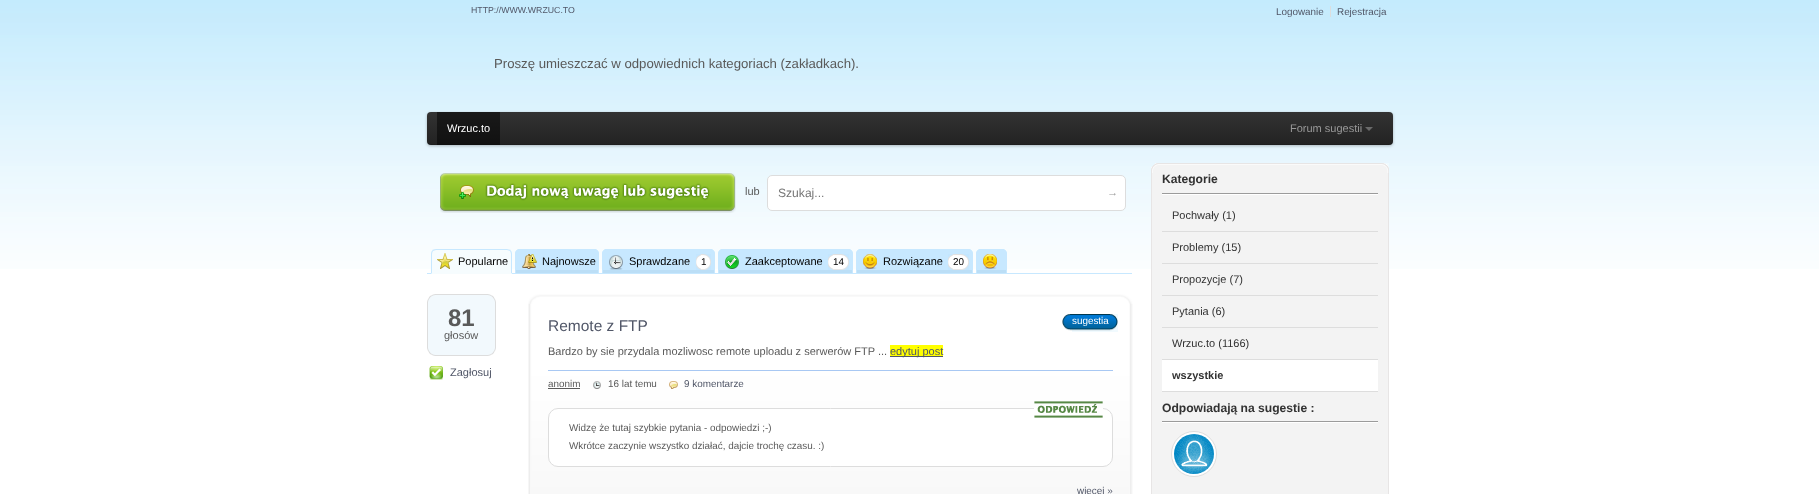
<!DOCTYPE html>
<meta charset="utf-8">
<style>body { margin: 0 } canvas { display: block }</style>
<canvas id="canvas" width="1819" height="494"></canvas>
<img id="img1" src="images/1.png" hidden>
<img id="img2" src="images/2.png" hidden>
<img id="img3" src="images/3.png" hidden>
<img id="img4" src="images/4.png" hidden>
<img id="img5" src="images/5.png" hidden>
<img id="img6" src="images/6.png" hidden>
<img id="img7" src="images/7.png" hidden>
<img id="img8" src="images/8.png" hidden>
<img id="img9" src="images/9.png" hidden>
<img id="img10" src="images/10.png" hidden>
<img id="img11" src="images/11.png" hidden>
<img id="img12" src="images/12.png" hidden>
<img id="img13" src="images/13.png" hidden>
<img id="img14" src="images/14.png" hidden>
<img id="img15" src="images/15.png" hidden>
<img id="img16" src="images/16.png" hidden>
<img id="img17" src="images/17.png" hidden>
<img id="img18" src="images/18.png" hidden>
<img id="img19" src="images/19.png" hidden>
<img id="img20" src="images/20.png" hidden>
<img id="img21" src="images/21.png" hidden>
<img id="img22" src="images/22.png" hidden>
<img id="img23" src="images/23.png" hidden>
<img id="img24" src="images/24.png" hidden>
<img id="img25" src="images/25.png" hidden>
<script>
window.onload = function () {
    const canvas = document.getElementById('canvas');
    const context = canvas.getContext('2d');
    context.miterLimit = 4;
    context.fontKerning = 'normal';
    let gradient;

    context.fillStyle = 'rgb(255, 255, 255)';
    context.fillRect(0, 0, 1819, 494);
    context.drawImage(document.getElementById('img1'), 0, 0, 1819, 269);
    context.fillStyle = 'rgb(221, 221, 221)';
    context.fillRect(1330, 6, 1, 11);
    context.fillStyle = 'rgba(0, 0, 0, 0.25)';
    context.filter = 'blur(1.5px)';
    context.beginPath();
    context.roundRect(427, 113, 966, 33, 4);
    context.fill();
    context.filter = 'none';
    gradient = context.createLinearGradient(910, 112, 910, 145);
    gradient.addColorStop(0, 'rgb(51, 51, 51)');
    gradient.addColorStop(1, 'rgb(34, 34, 34)');
    context.fillStyle = gradient;
    context.beginPath();
    context.roundRect(427, 112, 966, 33, 4);
    context.fill();
    context.fillStyle = 'rgba(0, 0, 0, 0.1)';
    context.beginPath();
    context.moveTo(427, 140);
    context.bezierCurveTo(427, 143, 428, 145, 431, 145);
    context.lineTo(1389, 145);
    context.bezierCurveTo(1392, 145, 1393, 143, 1393, 140);
    context.bezierCurveTo(1393, 142, 1391, 144, 1389, 144);
    context.lineTo(431, 144);
    context.bezierCurveTo(429, 144, 427, 142, 427, 140);
    context.closePath();
    context.fill();
    context.fillStyle = 'rgba(0, 0, 0, 0.5)';
    context.fillRect(437, 112, 63, 33);
    context.fillStyle = 'rgb(106, 106, 106)';
    context.beginPath();
    context.moveTo(1365, 127);
    context.lineTo(1373, 127);
    context.lineTo(1369, 131);
    context.closePath();
    context.fill();
    context.drawImage(document.getElementById('img2'), 440, 173, 296, 40);
    context.fillStyle = 'rgb(255, 255, 255)';
    context.beginPath();
    context.roundRect(767.5, 175.5, 358, 35, 4.5);
    context.fill();
    context.strokeStyle = 'rgb(221, 221, 221)';
    context.stroke();
    context.fillStyle = 'rgb(199, 232, 255)';
    context.fillRect(427, 273, 705, 1);
    context.fillStyle = 'rgb(246, 252, 254)';
    context.beginPath();
    context.roundRect(431, 249, 81, 25, [5, 5, 0, 0]);
    context.fill();
    context.drawImage(document.getElementById('img3'), 437, 253, 16, 16);
    context.fillStyle = 'rgb(199, 232, 255)';
    context.beginPath();
    context.moveTo(436, 249);
    context.bezierCurveTo(434, 249, 433, 250, 432, 250);
    context.lineTo(433, 251);
    context.lineTo(436, 250);
    context.lineTo(507, 250);
    context.lineTo(510, 251);
    context.lineTo(511, 250);
    context.bezierCurveTo(510, 250, 508, 249, 507, 249);
    context.closePath();
    context.fill();
    context.beginPath();
    context.moveTo(512, 274);
    context.lineTo(512, 254);
    context.bezierCurveTo(512, 252.5, 511.5, 251, 510.5, 250.5);
    context.lineTo(510, 251);
    context.bezierCurveTo(510.5, 252, 511, 253, 511, 254);
    context.lineTo(511, 273);
    context.closePath();
    context.fill();
    context.fillStyle = 'rgb(246, 252, 254)';
    context.beginPath();
    context.moveTo(512, 274);
    context.lineTo(511, 273);
    context.lineTo(432, 273);
    context.lineTo(431, 274);
    context.closePath();
    context.fill();
    context.fillStyle = 'rgb(199, 232, 255)';
    context.beginPath();
    context.moveTo(431, 274);
    context.lineTo(432, 273);
    context.lineTo(432, 254);
    context.bezierCurveTo(432, 253, 432.5, 252, 433, 251);
    context.lineTo(432.5, 250.5);
    context.bezierCurveTo(431.5, 251, 431, 252.5, 431, 254);
    context.closePath();
    context.fill();
    context.beginPath();
    context.roundRect(515, 249, 84, 24, [5, 5, 0, 0]);
    context.fill();
    context.fillStyle = 'rgb(187, 222, 246)';
    context.fillRect(515, 270, 84, 3);
    context.drawImage(document.getElementById('img4'), 522, 254, 15, 15);
    context.fillStyle = 'rgb(199, 232, 255)';
    context.beginPath();
    context.moveTo(520, 249);
    context.lineTo(594, 249);
    context.bezierCurveTo(597, 249, 599, 251, 599, 254);
    context.lineTo(599, 273);
    context.lineTo(515, 273);
    context.lineTo(515, 254);
    context.bezierCurveTo(515, 251, 517, 249, 520, 249);
    context.closePath();
    context.moveTo(520, 250);
    context.lineTo(594, 250);
    context.bezierCurveTo(596, 250, 598, 252, 598, 254);
    context.lineTo(598, 273);
    context.lineTo(516, 273);
    context.lineTo(516, 254);
    context.bezierCurveTo(516, 252, 518, 250, 520, 250);
    context.closePath();
    context.fill('evenodd');
    context.beginPath();
    context.roundRect(602, 249, 113, 24, [5, 5, 0, 0]);
    context.fill();
    context.fillStyle = 'rgb(187, 222, 246)';
    context.fillRect(602, 270, 113, 3);
    context.drawImage(document.getElementById('img5'), 609, 255, 14, 15);
    context.fillStyle = 'rgb(199, 232, 255)';
    context.beginPath();
    context.moveTo(607, 249);
    context.lineTo(710, 249);
    context.bezierCurveTo(713, 249, 715, 251, 715, 254);
    context.lineTo(715, 273);
    context.lineTo(602, 273);
    context.lineTo(602, 254);
    context.bezierCurveTo(602, 251, 604, 249, 607, 249);
    context.closePath();
    context.moveTo(607, 250);
    context.lineTo(710, 250);
    context.bezierCurveTo(712, 250, 714, 252, 714, 254);
    context.lineTo(714, 273);
    context.lineTo(603, 273);
    context.lineTo(603, 254);
    context.bezierCurveTo(603, 252, 605, 250, 607, 250);
    context.closePath();
    context.fill('evenodd');
    context.drawImage(document.getElementById('img6'), 696, 254, 5, 16);
    context.fillStyle = 'rgb(195, 230, 255)';
    context.fillRect(710, 254, 1, 16);
    context.drawImage(document.getElementById('img7'), 701, 254, 10, 16);
    context.fillStyle = 'rgb(199, 232, 255)';
    context.beginPath();
    context.roundRect(718, 249, 135, 24, [5, 5, 0, 0]);
    context.fill();
    context.fillStyle = 'rgb(187, 222, 246)';
    context.fillRect(718, 270, 135, 3);
    context.drawImage(document.getElementById('img8'), 725, 255, 14, 14);
    context.fillStyle = 'rgb(199, 232, 255)';
    context.beginPath();
    context.moveTo(723, 249);
    context.lineTo(848, 249);
    context.bezierCurveTo(851, 249, 853, 251, 853, 254);
    context.lineTo(853, 273);
    context.lineTo(718, 273);
    context.lineTo(718, 254);
    context.bezierCurveTo(718, 251, 720, 249, 723, 249);
    context.closePath();
    context.moveTo(723, 250);
    context.lineTo(848, 250);
    context.bezierCurveTo(850, 250, 852, 252, 852, 254);
    context.lineTo(852, 273);
    context.lineTo(719, 273);
    context.lineTo(719, 254);
    context.bezierCurveTo(719, 252, 721, 250, 723, 250);
    context.closePath();
    context.fill('evenodd');
    context.drawImage(document.getElementById('img9'), 828, 254, 5, 16);
    context.fillStyle = 'rgb(195, 230, 255)';
    context.fillRect(848, 254, 1, 16);
    context.drawImage(document.getElementById('img10'), 833, 254, 16, 16);
    context.fillStyle = 'rgb(199, 232, 255)';
    context.beginPath();
    context.roundRect(856, 249, 117, 24, [5, 5, 0, 0]);
    context.fill();
    context.fillStyle = 'rgb(187, 222, 246)';
    context.fillRect(856, 270, 117, 3);
    context.drawImage(document.getElementById('img11'), 863, 254, 14, 15);
    context.fillStyle = 'rgb(199, 232, 255)';
    context.beginPath();
    context.moveTo(861, 249);
    context.lineTo(968, 249);
    context.bezierCurveTo(971, 249, 973, 251, 973, 254);
    context.lineTo(973, 273);
    context.lineTo(856, 273);
    context.lineTo(856, 254);
    context.bezierCurveTo(856, 251, 858, 249, 861, 249);
    context.closePath();
    context.moveTo(861, 250);
    context.lineTo(968, 250);
    context.bezierCurveTo(970, 250, 972, 252, 972, 254);
    context.lineTo(972, 273);
    context.lineTo(857, 273);
    context.lineTo(857, 254);
    context.bezierCurveTo(857, 252, 859, 250, 861, 250);
    context.closePath();
    context.fill('evenodd');
    context.drawImage(document.getElementById('img9'), 948, 254, 5, 16);
    context.fillStyle = 'rgb(195, 230, 255)';
    context.fillRect(968, 254, 1, 16);
    context.drawImage(document.getElementById('img10'), 953, 254, 16, 16);
    context.fillStyle = 'rgb(199, 232, 255)';
    context.beginPath();
    context.roundRect(976, 249, 31, 24, [5, 5, 0, 0]);
    context.fill();
    context.fillStyle = 'rgb(187, 222, 246)';
    context.fillRect(976, 270, 31, 3);
    context.drawImage(document.getElementById('img12'), 983, 254, 14, 15);
    context.fillStyle = 'rgb(199, 232, 255)';
    context.beginPath();
    context.moveTo(981, 249);
    context.lineTo(1002, 249);
    context.bezierCurveTo(1005, 249, 1007, 251, 1007, 254);
    context.lineTo(1007, 273);
    context.lineTo(976, 273);
    context.lineTo(976, 254);
    context.bezierCurveTo(976, 251, 978, 249, 981, 249);
    context.closePath();
    context.moveTo(981, 250);
    context.lineTo(1002, 250);
    context.bezierCurveTo(1004, 250, 1006, 252, 1006, 254);
    context.lineTo(1006, 273);
    context.lineTo(977, 273);
    context.lineTo(977, 254);
    context.bezierCurveTo(977, 252, 979, 250, 981, 250);
    context.closePath();
    context.fill('evenodd');
    context.drawImage(document.getElementById('img13'), 427, 294, 69, 62);
    context.drawImage(document.getElementById('img14'), 429, 366, 14, 14);
    context.drawImage(document.getElementById('img15'), 528, 304, 605, 190);
    context.drawImage(document.getElementById('img16'), 528, 294, 605, 10);
    context.drawImage(document.getElementById('img17'), 1062, 314, 10, 17);
    context.fillStyle = 'rgb(241, 250, 254)';
    context.fillRect(1072, 314, 46, 18);
    context.drawImage(document.getElementById('img18'), 1072, 314, 46, 17);
    context.fillStyle = 'rgb(255, 255, 0)';
    context.fillRect(890, 345, 53, 11);
    context.fillStyle = 'rgb(81, 87, 104)';
    context.fillRect(890, 356, 53, 1);
    context.fillStyle = 'rgb(168, 200, 243)';
    context.fillRect(548, 370, 565, 1);
    context.fillStyle = 'rgb(90, 90, 90)';
    context.fillRect(548, 388, 32, 1);
    context.drawImage(document.getElementById('img19'), 593, 381, 8, 8);
    context.drawImage(document.getElementById('img20'), 669, 381, 9, 8);
    context.fillStyle = 'rgb(255, 255, 255)';
    context.beginPath();
    context.roundRect(548.5, 408.5, 564, 58, 9.5);
    context.fill();
    context.stroke();
    context.fillRect(1034, 408, 69, 1);
    context.drawImage(document.getElementById('img21'), 1034, 401, 69, 17);
    context.drawImage(document.getElementById('img22'), 1151, 163, 228, 10);
    context.fillStyle = 'rgb(238, 250, 255)';
    context.fillRect(1385, 163, 4, 4);
    context.drawImage(document.getElementById('img23'), 1379, 163, 10, 10);
    context.fillStyle = 'rgb(243, 243, 243)';
    context.fillRect(1152, 173, 236, 321);
    context.fillStyle = 'rgb(231, 229, 229)';
    context.fillRect(1388, 173, 1, 321);
    context.fillRect(1151, 173, 1, 321);
    context.drawImage(document.getElementById('img24'), 1162, 193, 216, 2);
    context.fillStyle = 'rgb(221, 221, 221)';
    context.fillRect(1162, 231, 216, 1);
    context.fillRect(1162, 263, 216, 1);
    context.fillRect(1162, 295, 216, 1);
    context.fillRect(1162, 327, 216, 1);
    context.fillRect(1162, 359, 216, 1);
    context.fillStyle = 'rgb(255, 255, 255)';
    context.fillRect(1162, 360, 216, 31);
    context.fillStyle = 'rgb(221, 221, 221)';
    context.fillRect(1162, 391, 216, 1);
    context.drawImage(document.getElementById('img24'), 1162, 421, 216, 2);
    context.fillStyle = 'rgb(255, 255, 255)';
    context.beginPath();
    context.arc(1194, 454, 22.5, 0, 2 * Math.PI);
    context.fill();
    context.stroke();
    context.drawImage(document.getElementById('img25'), 1174, 434, 40, 40);
    context.font = '8.75px Liberation Sans';
    context.fillStyle = 'rgb(81, 87, 104)';
    context.fillText('HTTP://WWW.WRZUC.TO', 471, 13);
    context.font = '9.9px Liberation Sans';
    context.fillText('Logowanie', 1276, 15);
    context.fillText('Rejestracja', 1337, 15);
    context.font = '13.2px Liberation Sans';
    context.fillStyle = 'rgb(90, 90, 90)';
    context.fillText('Proszę umieszczać w odpowiednich kategoriach (zakładkach).', 494, 68);
    context.font = '11px Liberation Sans';
    context.fillStyle = 'rgb(255, 255, 255)';
    context.fillText('Wrzuc.to', 447, 132);
    context.fillStyle = 'rgb(153, 153, 153)';
    context.fillText('Forum sugestii', 1290, 132);
    context.fillStyle = 'rgb(90, 90, 90)';
    context.fillText('lub', 745, 195);
    context.font = '12.1px Liberation Sans';
    context.fillStyle = 'rgb(117, 117, 117)';
    context.fillText('Szukaj...', 778, 197);
    context.font = '11px Liberation Sans';
    context.fillStyle = 'rgb(153, 153, 153)';
    context.fillText('→', 1107, 196);
    context.fillStyle = 'rgb(0, 0, 0)';
    context.fillText('Popularne', 458, 265);
    context.fillText('Najnowsze', 542, 265);
    context.fillText('Sprawdzane', 629, 265);
    context.font = '9.9px Liberation Sans';
    context.fillText('1', 701, 265);
    context.font = '11px Liberation Sans';
    context.fillText('Zaakceptowane', 745, 265);
    context.font = '9.9px Liberation Sans';
    context.fillText('14', 833, 265);
    context.font = '11px Liberation Sans';
    context.fillText('Rozwiązane', 883, 265);
    context.font = '9.9px Liberation Sans';
    context.fillText('20', 953, 265);
    context.font = 'bold 24px Liberation Sans';
    context.fillStyle = 'rgb(90, 90, 90)';
    context.fillText('81', 448, 326);
    context.font = '11px Liberation Sans';
    context.fillText('głosów', 444, 339);
    context.fillStyle = 'rgb(81, 87, 104)';
    context.fillText('Zagłosuj', 450, 376);
    context.font = '15.5px Liberation Sans';
    context.fillText('Remote z FTP', 548, 331);
    context.font = '9.9px Liberation Sans';
    context.fillStyle = 'rgb(255, 255, 255)';
    context.fillText('sugestia', 1072, 324);
    context.font = '11px Liberation Sans';
    context.fillStyle = 'rgb(90, 90, 90)';
    context.fillText('Bardzo by sie przydala mozliwosc remote uploadu z serwerów FTP ...', 548, 355);
    context.fillStyle = 'rgb(81, 87, 104)';
    context.fillText('edytuj post', 890, 355);
    context.font = '9.9px Liberation Sans';
    context.fillStyle = 'rgb(90, 90, 90)';
    context.fillText('anonim', 548, 387);
    context.fillText('16 lat temu', 608, 387);
    context.fillStyle = 'rgb(81, 87, 104)';
    context.fillText('9 komentarze', 684, 387);
    context.fillStyle = 'rgb(90, 90, 90)';
    context.fillText('Widzę że tutaj szybkie pytania - odpowiedzi ;-)', 569, 431);
    context.fillText('Wkrótce zaczynie wszystko działać, dajcie trochę czasu. :)', 569, 449);
    context.fillStyle = 'rgb(81, 87, 104)';
    context.fillText('więcej »', 1077, 494);
    context.font = 'bold 12.1px Liberation Sans';
    context.fillStyle = 'rgb(50, 50, 50)';
    context.fillText('Kategorie', 1162, 183);
    context.font = '11px Liberation Sans';
    context.fillText('Pochwały (1)', 1172, 219);
    context.fillText('Problemy (15)', 1172, 251);
    context.fillText('Propozycje (7)', 1172, 283);
    context.fillText('Pytania (6)', 1172, 315);
    context.fillText('Wrzuc.to (1166)', 1172, 347);
    context.font = 'bold 11px Liberation Sans';
    context.fillText('wszystkie', 1172, 379);
    context.font = 'bold 12.1px Liberation Sans';
    context.fillText('Odpowiadają na sugestie :', 1162, 412);
};
</script>
